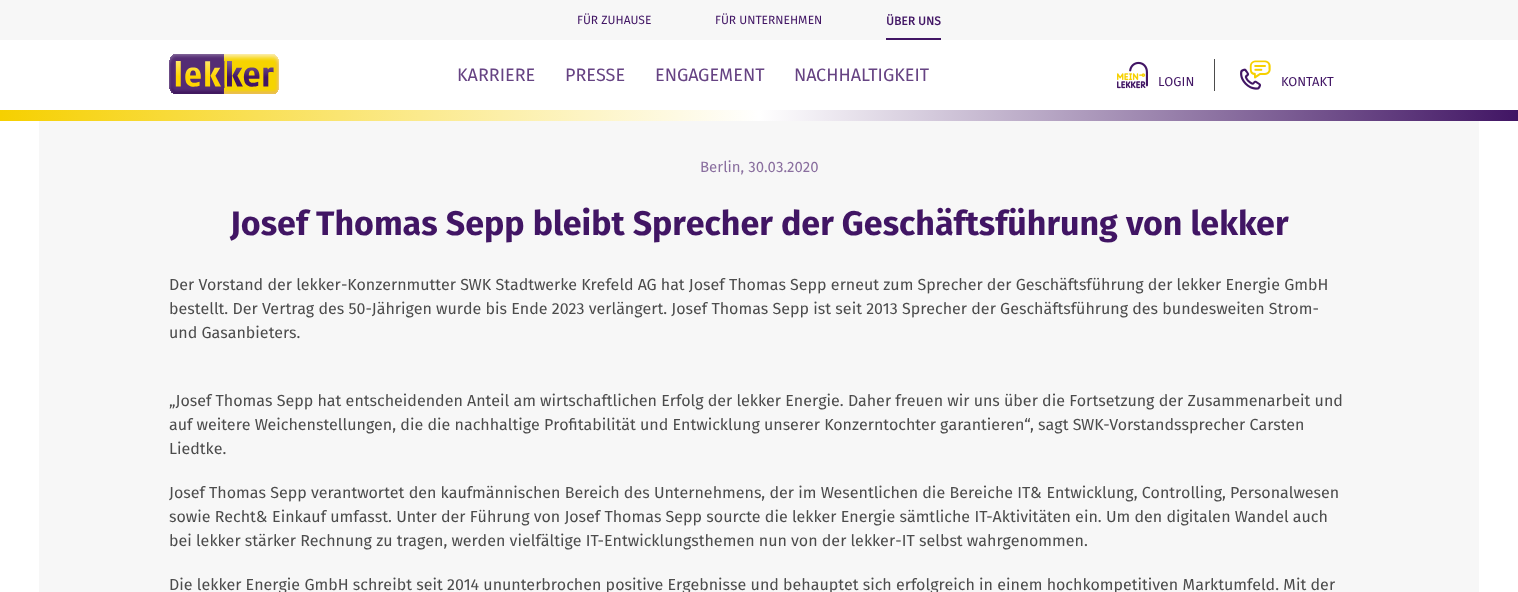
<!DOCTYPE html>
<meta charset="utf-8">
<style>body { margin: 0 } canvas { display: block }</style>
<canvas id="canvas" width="1518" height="592"></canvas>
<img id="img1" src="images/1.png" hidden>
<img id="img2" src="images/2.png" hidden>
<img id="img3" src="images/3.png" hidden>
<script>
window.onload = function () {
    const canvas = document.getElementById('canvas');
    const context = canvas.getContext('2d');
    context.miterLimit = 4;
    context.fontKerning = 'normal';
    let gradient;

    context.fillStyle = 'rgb(255, 255, 255)';
    context.fillRect(0, 0, 1518, 592);
    context.fillStyle = 'rgb(247, 247, 247)';
    context.fillRect(0, 0, 1518, 40);
    context.fillStyle = 'rgb(65, 21, 100)';
    context.fillRect(886, 38, 55, 2);
    context.drawImage(document.getElementById('img1'), 169, 54, 110, 40);
    context.drawImage(document.getElementById('img2'), 1117, 61, 31, 28);
    context.fillStyle = 'rgb(76, 76, 76)';
    context.fillRect(1214, 59, 1, 32);
    context.drawImage(document.getElementById('img3'), 1240, 60, 31, 30);
    gradient = context.createLinearGradient(0, 116, 1518, 115);
    gradient.addColorStop(0, 'rgb(246, 208, 0)');
    gradient.addColorStop(0.5, 'rgb(255, 255, 255)');
    gradient.addColorStop(1, 'rgb(65, 21, 100)');
    context.fillStyle = gradient;
    context.fillRect(0, 110, 1518, 11);
    context.fillStyle = 'rgb(247, 247, 247)';
    context.fillRect(39, 121, 1440, 471);
    context.font = '12px Fira Sans';
    context.fillStyle = 'rgb(65, 21, 100)';
    context.fillText('FÜR ZUHAUSE', 577, 24);
    context.fillText('FÜR UNTERNEHMEN', 715, 24);
    context.font = 'bold 12px "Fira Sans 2"';
    context.fillText('ÜBER UNS', 886, 25);
    context.font = '18px Fira Sans';
    context.fillStyle = 'rgb(102, 67, 131)';
    context.fillText('KARRIERE', 457, 81);
    context.fillText('PRESSE', 565, 81);
    context.fillText('ENGAGEMENT', 655, 81);
    context.fillText('NACHHALTIGKEIT', 794, 81);
    context.font = '13px Fira Sans';
    context.fillStyle = 'rgb(65, 21, 100)';
    context.fillText('LOGIN', 1158, 86);
    context.fillText('KONTAKT', 1281, 86);
    context.font = '15px Fira Sans';
    context.fillStyle = 'rgb(138, 111, 159)';
    context.fillText('Berlin, 30.03.2020', 700, 172);
    context.font = 'bold 34px Fira Sans';
    context.fillStyle = 'rgb(65, 21, 100)';
    context.fillText('Josef Thomas Sepp bleibt Sprecher der Geschäftsführung von lekker', 230, 235);
    context.font = '16px Fira Sans';
    context.fillStyle = 'rgb(76, 76, 76)';
    context.fillText('Der Vorstand der lekker-Konzernmutter SWK Stadtwerke Krefeld AG hat Josef Thomas Sepp erneut zum Sprecher der Geschäftsführung der lekker Energie GmbH', 169, 290);
    context.fillText('bestellt. Der Vertrag des 50-Jährigen wurde bis Ende 2023 verlängert. Josef Thomas Sepp ist seit 2013 Sprecher der Geschäftsführung des bundesweiten Strom-', 169, 314);
    context.fillText('und Gasanbieters.', 169, 338);
    context.fillText('„Josef Thomas Sepp hat entscheidenden Anteil am wirtschaftlichen Erfolg der lekker Energie. Daher freuen wir uns über die Fortsetzung der Zusammenarbeit und', 169, 406);
    context.fillText('auf weitere Weichenstellungen, die die nachhaltige Profitabilität und Entwicklung unserer Konzerntochter garantieren“, sagt SWK-Vorstandssprecher Carsten', 169, 430);
    context.fillText('Liedtke.', 169, 454);
    context.fillText('Josef Thomas Sepp verantwortet den kaufmännischen Bereich des Unternehmens, der im Wesentlichen die Bereiche IT& Entwicklung, Controlling, Personalwesen', 169, 498);
    context.fillText('sowie Recht& Einkauf umfasst. Unter der Führung von Josef Thomas Sepp sourcte die lekker Energie sämtliche IT-Aktivitäten ein. Um den digitalen Wandel auch', 169, 522);
    context.fillText('bei lekker stärker Rechnung zu tragen, werden vielfältige IT-Entwicklungsthemen nun von der lekker-IT selbst wahrgenommen.', 169, 546);
    context.fillText('Die lekker Energie GmbH schreibt seit 2014 ununterbrochen positive Ergebnisse und behauptet sich erfolgreich in einem hochkompetitiven Marktumfeld. Mit der', 169, 590);
};
</script>
